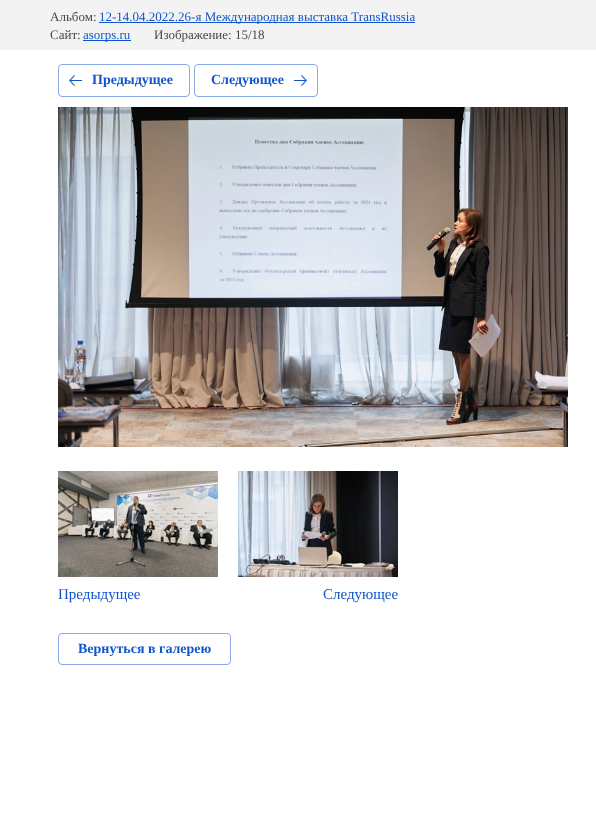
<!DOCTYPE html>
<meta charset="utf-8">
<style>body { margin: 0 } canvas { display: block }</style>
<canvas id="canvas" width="596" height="830"></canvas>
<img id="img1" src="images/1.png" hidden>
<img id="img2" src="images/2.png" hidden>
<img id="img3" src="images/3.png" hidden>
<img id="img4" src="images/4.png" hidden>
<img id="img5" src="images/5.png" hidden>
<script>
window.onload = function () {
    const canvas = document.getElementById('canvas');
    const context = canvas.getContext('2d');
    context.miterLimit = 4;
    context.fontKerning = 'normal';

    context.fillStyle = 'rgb(255, 255, 255)';
    context.fillRect(0, 0, 596, 830);
    context.fillStyle = 'rgb(243, 243, 243)';
    context.fillRect(0, 0, 596, 50);
    context.fillStyle = 'rgb(17, 85, 204)';
    context.fillRect(99, 22, 316, 1);
    context.fillRect(83, 40, 48, 1);
    context.beginPath();
    context.roundRect(58.5, 64.5, 131, 32, 3.5);
    context.strokeStyle = 'rgb(136, 170, 230)';
    context.stroke();
    context.drawImage(document.getElementById('img1'), 69, 75, 13, 11);
    context.beginPath();
    context.roundRect(194.5, 64.5, 123, 32, 3.5);
    context.stroke();
    context.drawImage(document.getElementById('img2'), 294, 75, 13, 11);
    context.drawImage(document.getElementById('img3'), 58, 107, 510, 340);
    context.drawImage(document.getElementById('img4'), 58, 471, 160, 106);
    context.drawImage(document.getElementById('img5'), 238, 471, 160, 106);
    context.beginPath();
    context.roundRect(58.5, 633.5, 172, 31, 3.5);
    context.stroke();
    context.font = '13px Liberation Serif';
    context.fillStyle = 'rgb(72, 72, 72)';
    context.fillText('Альбом:', 50, 21);
    context.fillStyle = 'rgb(17, 85, 204)';
    context.fillText('12-14.04.2022.26-я Международная выставка TransRussia', 99, 21);
    context.fillStyle = 'rgb(72, 72, 72)';
    context.fillText('Сайт:', 50, 39);
    context.fillStyle = 'rgb(17, 85, 204)';
    context.fillText('asorps.ru', 83, 39);
    context.fillStyle = 'rgb(72, 72, 72)';
    context.fillText('Изображение: 15/18', 154, 39);
    context.font = 'bold 14px Liberation Serif';
    context.fillStyle = 'rgb(17, 85, 204)';
    context.fillText('Предыдущее', 92, 84);
    context.fillText('Следующее', 211, 84);
    context.font = '15px Liberation Serif';
    context.fillText('Предыдущее', 58, 599);
    context.fillText('Следующее', 323, 599);
    context.font = 'bold 14px Liberation Serif';
    context.fillText('Вернуться в галерею', 78, 653);
};
</script>
